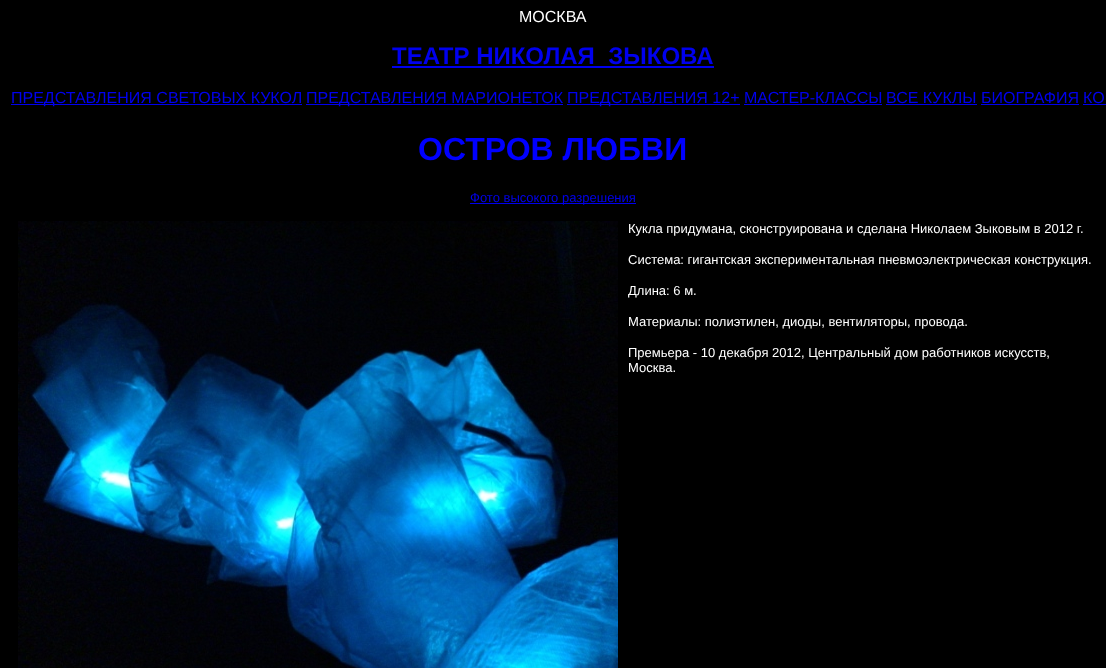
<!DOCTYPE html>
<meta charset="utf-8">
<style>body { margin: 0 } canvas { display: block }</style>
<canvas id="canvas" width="1106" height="668"></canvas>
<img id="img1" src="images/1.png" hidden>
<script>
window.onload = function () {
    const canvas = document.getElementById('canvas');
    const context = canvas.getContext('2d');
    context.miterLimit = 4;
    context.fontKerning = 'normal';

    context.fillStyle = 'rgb(0, 0, 0)';
    context.fillRect(0, 0, 1106, 668);
    context.fillStyle = 'rgb(0, 0, 238)';
    context.fillRect(392, 66, 322, 2);
    context.fillRect(11, 104, 291, 1);
    context.fillRect(306, 104, 257, 1);
    context.fillRect(567, 104, 173, 1);
    context.fillRect(744, 104, 138, 1);
    context.fillRect(886, 104, 91, 1);
    context.fillRect(981, 104, 98, 1);
    context.fillRect(1083, 104, 23, 1);
    context.fillRect(470, 203, 166, 1);
    context.drawImage(document.getElementById('img1'), 18, 221, 600, 447);
    context.font = '16px Liberation Sans';
    context.fillStyle = 'rgb(255, 255, 255)';
    context.fillText('МОСКВА', 519, 22);
    context.font = 'bold 24px Liberation Sans';
    context.fillStyle = 'rgb(0, 0, 238)';
    context.fillText('ТЕАТР НИКОЛАЯ  ЗЫКОВА', 392, 64);
    context.font = '16px Liberation Sans';
    context.fillText('ПРЕДСТАВЛЕНИЯ СВЕТОВЫХ КУКОЛ', 11, 103);
    context.fillText('ПРЕДСТАВЛЕНИЯ МАРИОНЕТОК', 306, 103);
    context.fillText('ПРЕДСТАВЛЕНИЯ 12+', 567, 103);
    context.fillText('МАСТЕР-КЛАССЫ', 744, 103);
    context.fillText('ВСЕ КУКЛЫ', 886, 103);
    context.fillText('БИОГРАФИЯ', 981, 103);
    context.fillText('КО', 1083, 103);
    context.font = 'bold 32px Liberation Sans';
    context.fillStyle = 'rgb(0, 0, 255)';
    context.fillText('ОСТРОВ ЛЮБВИ', 418, 160);
    context.font = '13px Liberation Sans';
    context.fillStyle = 'rgb(0, 0, 238)';
    context.fillText('Фото высокого разрешения', 470, 202);
    context.fillStyle = 'rgb(255, 255, 255)';
    context.fillText('Кукла придумана, сконструирована и сделана Николаем Зыковым в 2012 г.', 628, 233);
    context.fillText('Система: гигантская экспериментальная пневмоэлектрическая конструкция.', 628, 264);
    context.fillText('Длина: 6 м.', 628, 295);
    context.fillText('Материалы: полиэтилен, диоды, вентиляторы, провода.', 628, 326);
    context.fillText('Премьера - 10 декабря 2012, Центральный дом работников искусств,', 628, 357);
    context.fillText('Москва.', 628, 372);
};
</script>
